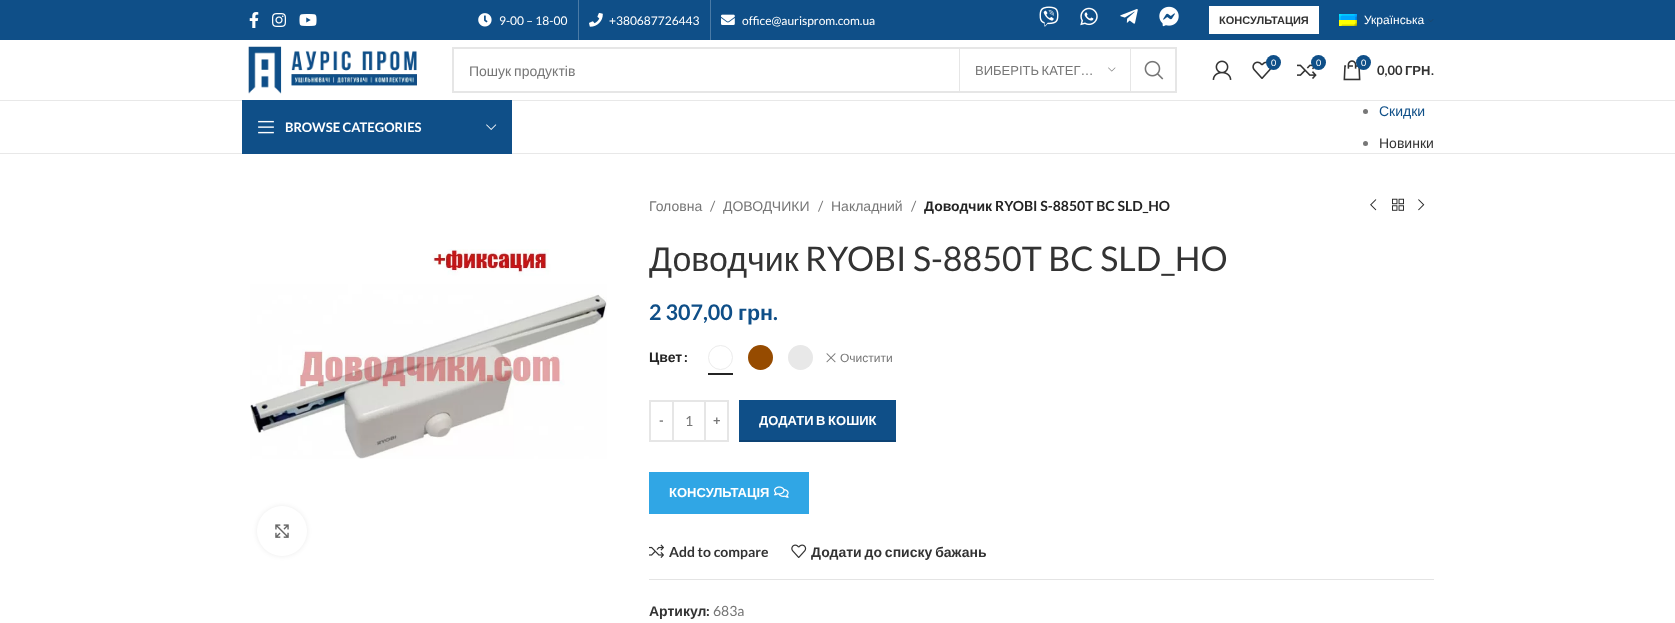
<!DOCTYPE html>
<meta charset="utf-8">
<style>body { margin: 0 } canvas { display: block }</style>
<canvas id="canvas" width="1675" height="623"></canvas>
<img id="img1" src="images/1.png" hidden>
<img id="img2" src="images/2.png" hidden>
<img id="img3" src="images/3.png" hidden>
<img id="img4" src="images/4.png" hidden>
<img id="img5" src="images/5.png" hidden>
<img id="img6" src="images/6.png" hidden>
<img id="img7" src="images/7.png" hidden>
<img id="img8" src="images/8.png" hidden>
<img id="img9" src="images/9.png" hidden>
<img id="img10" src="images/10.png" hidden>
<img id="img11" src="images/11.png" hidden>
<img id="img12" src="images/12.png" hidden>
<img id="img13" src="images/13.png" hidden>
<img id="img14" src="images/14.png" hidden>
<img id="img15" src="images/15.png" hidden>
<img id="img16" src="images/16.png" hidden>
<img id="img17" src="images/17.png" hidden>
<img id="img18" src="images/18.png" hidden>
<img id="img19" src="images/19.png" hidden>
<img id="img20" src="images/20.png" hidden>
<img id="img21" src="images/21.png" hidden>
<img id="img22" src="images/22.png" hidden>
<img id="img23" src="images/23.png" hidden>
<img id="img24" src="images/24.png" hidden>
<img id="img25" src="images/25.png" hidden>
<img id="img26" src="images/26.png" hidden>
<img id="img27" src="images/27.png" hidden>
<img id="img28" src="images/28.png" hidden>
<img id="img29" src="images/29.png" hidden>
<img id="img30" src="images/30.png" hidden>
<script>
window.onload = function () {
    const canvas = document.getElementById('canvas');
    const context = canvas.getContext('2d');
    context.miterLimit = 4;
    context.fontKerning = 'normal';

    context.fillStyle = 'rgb(255, 255, 255)';
    context.fillRect(0, 0, 1675, 623);
    context.fillStyle = 'rgb(15, 79, 136)';
    context.fillRect(0, 0, 1675, 40);
    context.drawImage(document.getElementById('img1'), 249, 12, 10, 16);
    context.drawImage(document.getElementById('img2'), 272, 13, 14, 14);
    context.drawImage(document.getElementById('img3'), 299, 14, 18, 12);
    context.drawImage(document.getElementById('img4'), 478, 13, 14, 14);
    context.fillStyle = 'rgb(75, 123, 166)';
    context.fillRect(578, 0, 1, 40);
    context.drawImage(document.getElementById('img5'), 589, 12, 14, 15);
    context.fillRect(710, 0, 1, 40);
    context.drawImage(document.getElementById('img6'), 721, 14, 14, 11);
    context.drawImage(document.getElementById('img7'), 1039, 6, 20, 21);
    context.drawImage(document.getElementById('img8'), 1080, 7, 18, 19);
    context.drawImage(document.getElementById('img9'), 1120, 9, 18, 15);
    context.drawImage(document.getElementById('img10'), 1159, 6, 20, 21);
    context.fillStyle = 'rgb(255, 255, 255)';
    context.fillRect(1209, 6, 110, 28);
    context.drawImage(document.getElementById('img11'), 1339, 14, 18, 12);
    context.drawImage(document.getElementById('img12'), 1428, 19, 6, 3);
    context.fillStyle = 'rgb(232, 232, 232)';
    context.fillRect(0, 100, 1675, 1);
    context.drawImage(document.getElementById('img13'), 248, 46, 169, 48);
    context.strokeStyle = 'rgb(230, 230, 230)';
    context.lineWidth = 2;
    context.strokeRect(453, 48, 723, 44);
    context.fillStyle = 'rgb(230, 230, 230)';
    context.fillRect(1130, 49, 1, 42);
    context.fillRect(959, 49, 1, 42);
    context.drawImage(document.getElementById('img14'), 1108, 67, 8, 5);
    context.drawImage(document.getElementById('img15'), 1144, 60, 20, 20);
    context.drawImage(document.getElementById('img16'), 1212, 60, 20, 20);
    context.drawImage(document.getElementById('img17'), 1252, 61, 20, 18);
    context.fillStyle = 'rgb(15, 79, 136)';
    context.beginPath();
    context.arc(1273.5, 62.5, 7.5, 0, 2 * Math.PI);
    context.fill();
    context.drawImage(document.getElementById('img18'), 1297, 64, 20, 15);
    context.beginPath();
    context.arc(1318.5, 62.5, 7.5, 0, 2 * Math.PI);
    context.fill();
    context.drawImage(document.getElementById('img19'), 1343, 60, 18, 21);
    context.beginPath();
    context.arc(1363.5, 62.5, 7.5, 0, 2 * Math.PI);
    context.fill();
    context.fillStyle = 'rgb(232, 232, 232)';
    context.fillRect(0, 153, 1675, 1);
    context.fillStyle = 'rgb(15, 79, 136)';
    context.fillRect(242, 100, 270, 54);
    context.drawImage(document.getElementById('img20'), 258, 120, 16, 14);
    context.drawImage(document.getElementById('img21'), 486, 124, 11, 6);
    context.fillStyle = 'rgb(119, 119, 119)';
    context.beginPath();
    context.arc(1365.5, 111.5, 2.5, 0, 2 * Math.PI);
    context.fill();
    context.beginPath();
    context.arc(1365.5, 143.5, 2.5, 0, 2 * Math.PI);
    context.fill();
    context.drawImage(document.getElementById('img22'), 250, 249, 357, 210);
    context.fillStyle = 'rgba(0, 0, 0, 0.08)';
    context.filter = 'blur(2.5px)';
    context.beginPath();
    context.roundRect(257, 506, 50, 50, 25);
    context.fill();
    context.filter = 'none';
    context.fillStyle = 'rgb(255, 255, 255)';
    context.beginPath();
    context.arc(282, 531, 25, 0, 2 * Math.PI);
    context.fill();
    context.drawImage(document.getElementById('img23'), 275, 524, 14, 14);
    context.drawImage(document.getElementById('img24'), 1370, 199, 7, 12);
    context.drawImage(document.getElementById('img25'), 1392, 198, 12, 13);
    context.drawImage(document.getElementById('img26'), 1418, 199, 7, 12);
    context.beginPath();
    context.arc(720.5, 357.5, 12, 0, 2 * Math.PI);
    context.strokeStyle = 'rgb(236, 236, 236)';
    context.lineWidth = 1;
    context.stroke();
    context.fillStyle = 'rgb(36, 36, 36)';
    context.fillRect(708, 373, 25, 2);
    context.fillStyle = 'rgb(150, 75, 0)';
    context.beginPath();
    context.arc(760.5, 357.5, 12.5, 0, 2 * Math.PI);
    context.fill();
    context.fillStyle = 'rgb(232, 232, 232)';
    context.beginPath();
    context.arc(800.5, 357.5, 12.5, 0, 2 * Math.PI);
    context.fill();
    context.drawImage(document.getElementById('img27'), 826, 353, 10, 10);
    context.strokeStyle = 'rgb(230, 230, 230)';
    context.lineWidth = 2;
    context.strokeRect(650, 401, 23, 40);
    context.fillStyle = 'rgb(230, 230, 230)';
    context.fillRect(674, 400, 30, 2);
    context.fillRect(674, 440, 30, 2);
    context.strokeRect(705, 401, 23, 40);
    context.fillStyle = 'rgb(15, 79, 136)';
    context.fillRect(739, 400, 157, 40);
    context.fillStyle = 'rgb(13, 67, 116)';
    context.fillRect(739, 440, 157, 2);
    context.fillStyle = 'rgb(48, 166, 229)';
    context.fillRect(649, 472, 160, 42);
    context.drawImage(document.getElementById('img28'), 774, 486, 15, 12);
    context.drawImage(document.getElementById('img29'), 649, 544, 15, 14);
    context.drawImage(document.getElementById('img30'), 791, 544, 16, 14);
    context.fillStyle = 'rgb(228, 228, 228)';
    context.fillRect(649, 579, 785, 1);
    context.font = '12px Lato';
    context.fillStyle = 'rgb(255, 255, 255)';
    context.fillText('9-00 – 18-00', 499, 25);
    context.fillText('+380687726443', 609, 25);
    context.fillText('office@aurisprom.com.ua', 742, 25);
    context.font = 'bold 11px Liberation Sans';
    context.fillStyle = 'rgb(51, 51, 51)';
    context.fillText('КОНСУЛЬТАЦИЯ', 1219, 24);
    context.font = '12px Liberation Sans';
    context.fillStyle = 'rgb(255, 255, 255)';
    context.fillText('Українська', 1364, 24);
    context.wordSpacing = '-1px';
    context.font = '14px Liberation Sans';
    context.fillStyle = 'rgb(118, 118, 118)';
    context.fillText('Пошук продуктів', 469, 76);
    context.font = '13px Liberation Sans';
    context.fillText('ВИБЕРІТЬ КАТЕГ…', 975, 75);
    context.wordSpacing = '0px';
    context.font = '9px Lato';
    context.fillStyle = 'rgb(255, 255, 255)';
    context.fillText('0', 1271, 66);
    context.fillText('0', 1316, 66);
    context.fillText('0', 1361, 66);
    context.font = 'bold 13px Lato';
    context.fillStyle = 'rgb(51, 51, 51)';
    context.fillText('0,00', 1377, 75);
    context.font = 'bold 13px Liberation Sans';
    context.fillText('ГРН', 1405, 75);
    context.font = 'bold 13px Lato';
    context.fillText('.', 1431, 75);
    context.fillStyle = 'rgb(255, 255, 255)';
    context.fillText('BROWSE CATEGORIES', 285, 132);
    context.font = '14px Liberation Sans';
    context.fillStyle = 'rgb(15, 79, 136)';
    context.fillText('Скидки', 1379, 116);
    context.fillStyle = 'rgb(51, 51, 51)';
    context.fillText('Новинки', 1379, 148);
    context.fillStyle = 'rgb(118, 118, 118)';
    context.fillText('Головна', 649, 211);
    context.font = '14px Lato';
    context.fillText('/', 710, 211);
    context.font = '14px Liberation Sans';
    context.fillText('ДОВОДЧИКИ', 723, 211);
    context.font = '14px Lato';
    context.fillText('/', 818, 211);
    context.font = '14px Liberation Sans';
    context.fillText('Накладний', 831, 211);
    context.font = '14px Lato';
    context.fillText('/', 911, 211);
    context.font = 'bold 14px Liberation Sans';
    context.fillStyle = 'rgb(36, 36, 36)';
    context.fillText('Доводчик', 924, 211);
    context.font = 'bold 14px Lato';
    context.fillText('RYOBI S-8850T BC SLD_HO', 995, 211);
    context.font = '34px Liberation Sans';
    context.fillStyle = 'rgb(51, 51, 51)';
    context.fillText('Доводчик', 649, 271);
    context.font = '34px Lato';
    context.fillText('RYOBI S-8850T BC SLD_HO', 805, 271);
    context.font = 'bold 21.5px Lato';
    context.fillStyle = 'rgb(15, 79, 136)';
    context.fillText('2 307,00', 649, 320);
    context.font = 'bold 21.5px Liberation Sans';
    context.fillText('грн', 738, 320);
    context.font = 'bold 21.5px Lato';
    context.fillText('.', 773, 320);
    context.font = 'bold 14px Liberation Sans';
    context.fillStyle = 'rgb(36, 36, 36)';
    context.fillText('Цвет', 649, 362);
    context.font = 'bold 14px Lato';
    context.fillText(':', 684, 362);
    context.font = '12px Liberation Sans';
    context.fillStyle = 'rgb(118, 118, 118)';
    context.fillText('Очистити', 840, 362);
    context.font = 'bold 13px Lato';
    context.fillText('-', 659, 425);
    context.font = '14px Lato';
    context.fillText('1', 685, 426);
    context.font = 'bold 13px Lato';
    context.fillText('+', 713, 425);
    context.wordSpacing = '-1px';
    context.font = 'bold 13px Liberation Sans';
    context.fillStyle = 'rgb(255, 255, 255)';
    context.fillText('ДОДАТИ В КОШИК', 759, 425);
    context.wordSpacing = '0px';
    context.fillText('КОНСУЛЬТАЦІЯ', 669, 497);
    context.font = 'bold 14px Lato';
    context.fillStyle = 'rgb(51, 51, 51)';
    context.fillText('Add to compare', 669, 557);
    context.wordSpacing = '-1px';
    context.font = 'bold 14px Liberation Sans';
    context.fillText('Додати до списку бажань', 811, 557);
    context.wordSpacing = '0px';
    context.fillText('Артикул', 649, 616);
    context.font = 'bold 14px Lato';
    context.fillText(':', 706, 616);
    context.font = '14px Lato';
    context.fillStyle = 'rgb(118, 118, 118)';
    context.fillText('683a', 713, 616);
};
</script>
